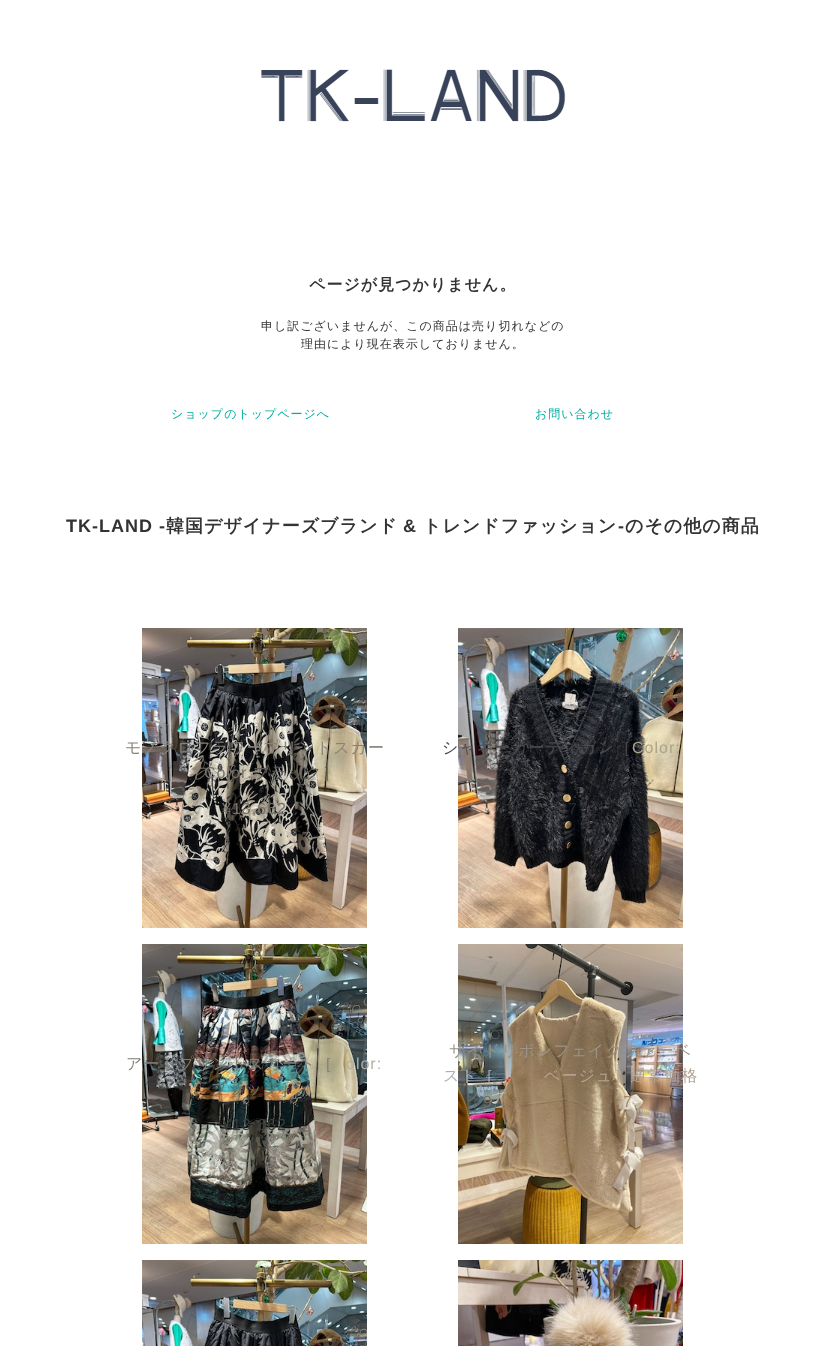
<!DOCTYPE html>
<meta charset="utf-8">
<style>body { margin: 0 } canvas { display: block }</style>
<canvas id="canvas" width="825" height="1346"></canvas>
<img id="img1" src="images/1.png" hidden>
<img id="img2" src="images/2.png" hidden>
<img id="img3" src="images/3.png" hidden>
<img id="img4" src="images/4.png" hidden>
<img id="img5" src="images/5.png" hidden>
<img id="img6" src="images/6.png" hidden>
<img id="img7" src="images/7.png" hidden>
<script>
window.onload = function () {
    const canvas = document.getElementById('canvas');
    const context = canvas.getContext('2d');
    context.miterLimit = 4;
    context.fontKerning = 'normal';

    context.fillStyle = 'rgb(255, 255, 255)';
    context.fillRect(0, 0, 825, 1346);
    context.drawImage(document.getElementById('img1'), 261, 69, 305, 53);
    context.drawImage(document.getElementById('img2'), 142, 628, 225, 300);
    context.drawImage(document.getElementById('img3'), 458, 628, 225, 300);
    context.drawImage(document.getElementById('img4'), 142, 944, 225, 300);
    context.drawImage(document.getElementById('img5'), 458, 944, 225, 300);
    context.drawImage(document.getElementById('img6'), 142, 1260, 225, 86);
    context.drawImage(document.getElementById('img7'), 458, 1260, 225, 86);
    context.letterSpacing = '1px';
    context.font = 'bold 16px WenQuanYi Zen Hei';
    context.fillStyle = 'rgb(51, 51, 51)';
    context.fillText('ページが見つかりません。', 309, 290);
    context.font = '500 12px WenQuanYi Zen Hei';
    context.fillText('申し訳ございませんが、この商品は売り切れなどの', 261, 330);
    context.fillText('理由により現在表示しておりません。', 301, 348);
    context.fillStyle = 'rgb(0, 174, 159)';
    context.fillText('ショップのトップページへ', 171, 418);
    context.fillText('お問い合わせ', 535, 418);
    context.font = 'bold 18px Liberation Sans';
    context.fillStyle = 'rgb(51, 51, 51)';
    context.fillText('TK-LAND -', 66, 532);
    context.font = 'bold 18px WenQuanYi Zen Hei';
    context.fillText('韓国デザイナーズブランド', 166, 532);
    context.font = 'bold 18px Liberation Sans';
    context.fillText('&', 403, 532);
    context.font = 'bold 18px WenQuanYi Zen Hei';
    context.fillText('トレンドファッション', 423, 532);
    context.font = 'bold 18px Liberation Sans';
    context.fillText('-', 618, 532);
    context.font = 'bold 18px WenQuanYi Zen Hei';
    context.fillText('のその他の商品', 625, 532);
    context.font = '500 16px WenQuanYi Zen Hei';
    context.fillStyle = 'rgb(135, 130, 121)';
    context.fillText('モノクロフラワープリントスカー', 125, 753);
    context.font = '16px Liberation Sans';
    context.fillStyle = 'rgb(116, 113, 105)';
    context.fillText('Color:', 204, 778);
    context.font = '500 16px WenQuanYi Zen Hei';
    context.fillStyle = 'rgb(96, 93, 85)';
    context.fillText('ブラック］', 253, 778);
    context.font = '16px Liberation Sans';
    context.fillStyle = 'rgb(116, 113, 105)';
    context.fillText('¥13,662', 222, 814);
    context.font = '500 16px WenQuanYi Zen Hei';
    context.fillStyle = 'rgb(75, 75, 78)';
    context.fillText('シャギーカーディガン［', 442, 753);
    context.font = '16px Liberation Sans';
    context.fillStyle = 'rgb(172, 164, 139)';
    context.fillText('Color:', 632, 753);
    context.fillStyle = 'rgb(39, 40, 44)';
    context.fillText('7', 568, 814);
    context.font = '500 16px WenQuanYi Zen Hei';
    context.fillStyle = 'rgb(124, 125, 119)';
    context.fillText('アートプリントスカート［', 126, 1069);
    context.font = '16px Liberation Sans';
    context.fillStyle = 'rgb(177, 176, 161)';
    context.fillText('olor:', 346, 1069);
    context.font = '500 16px WenQuanYi Zen Hei';
    context.fillStyle = 'rgb(97, 120, 106)';
    context.fillText('ブラック］', 211, 1094);
    context.font = '16px Liberation Sans';
    context.fillStyle = 'rgb(56, 61, 57)';
    context.fillText('¥13,662', 222, 1130);
    context.font = '500 16px WenQuanYi Zen Hei';
    context.fillStyle = 'rgb(155, 147, 135)';
    context.fillText('サイドリボンフェイクファーベ', 449, 1056);
    context.fillStyle = 'rgb(171, 177, 178)';
    context.fillText('スト［', 443, 1081);
    context.fillStyle = 'rgb(180, 164, 147)';
    context.fillText('ベージュ］通常価格', 544, 1081);
    context.font = '16px Liberation Sans';
    context.fillStyle = 'rgb(122, 114, 97)';
    context.fillText('9,', 483, 1107);
    context.fillStyle = 'rgb(161, 136, 112)';
    context.fillText('7,', 623, 1107);
};
</script>
